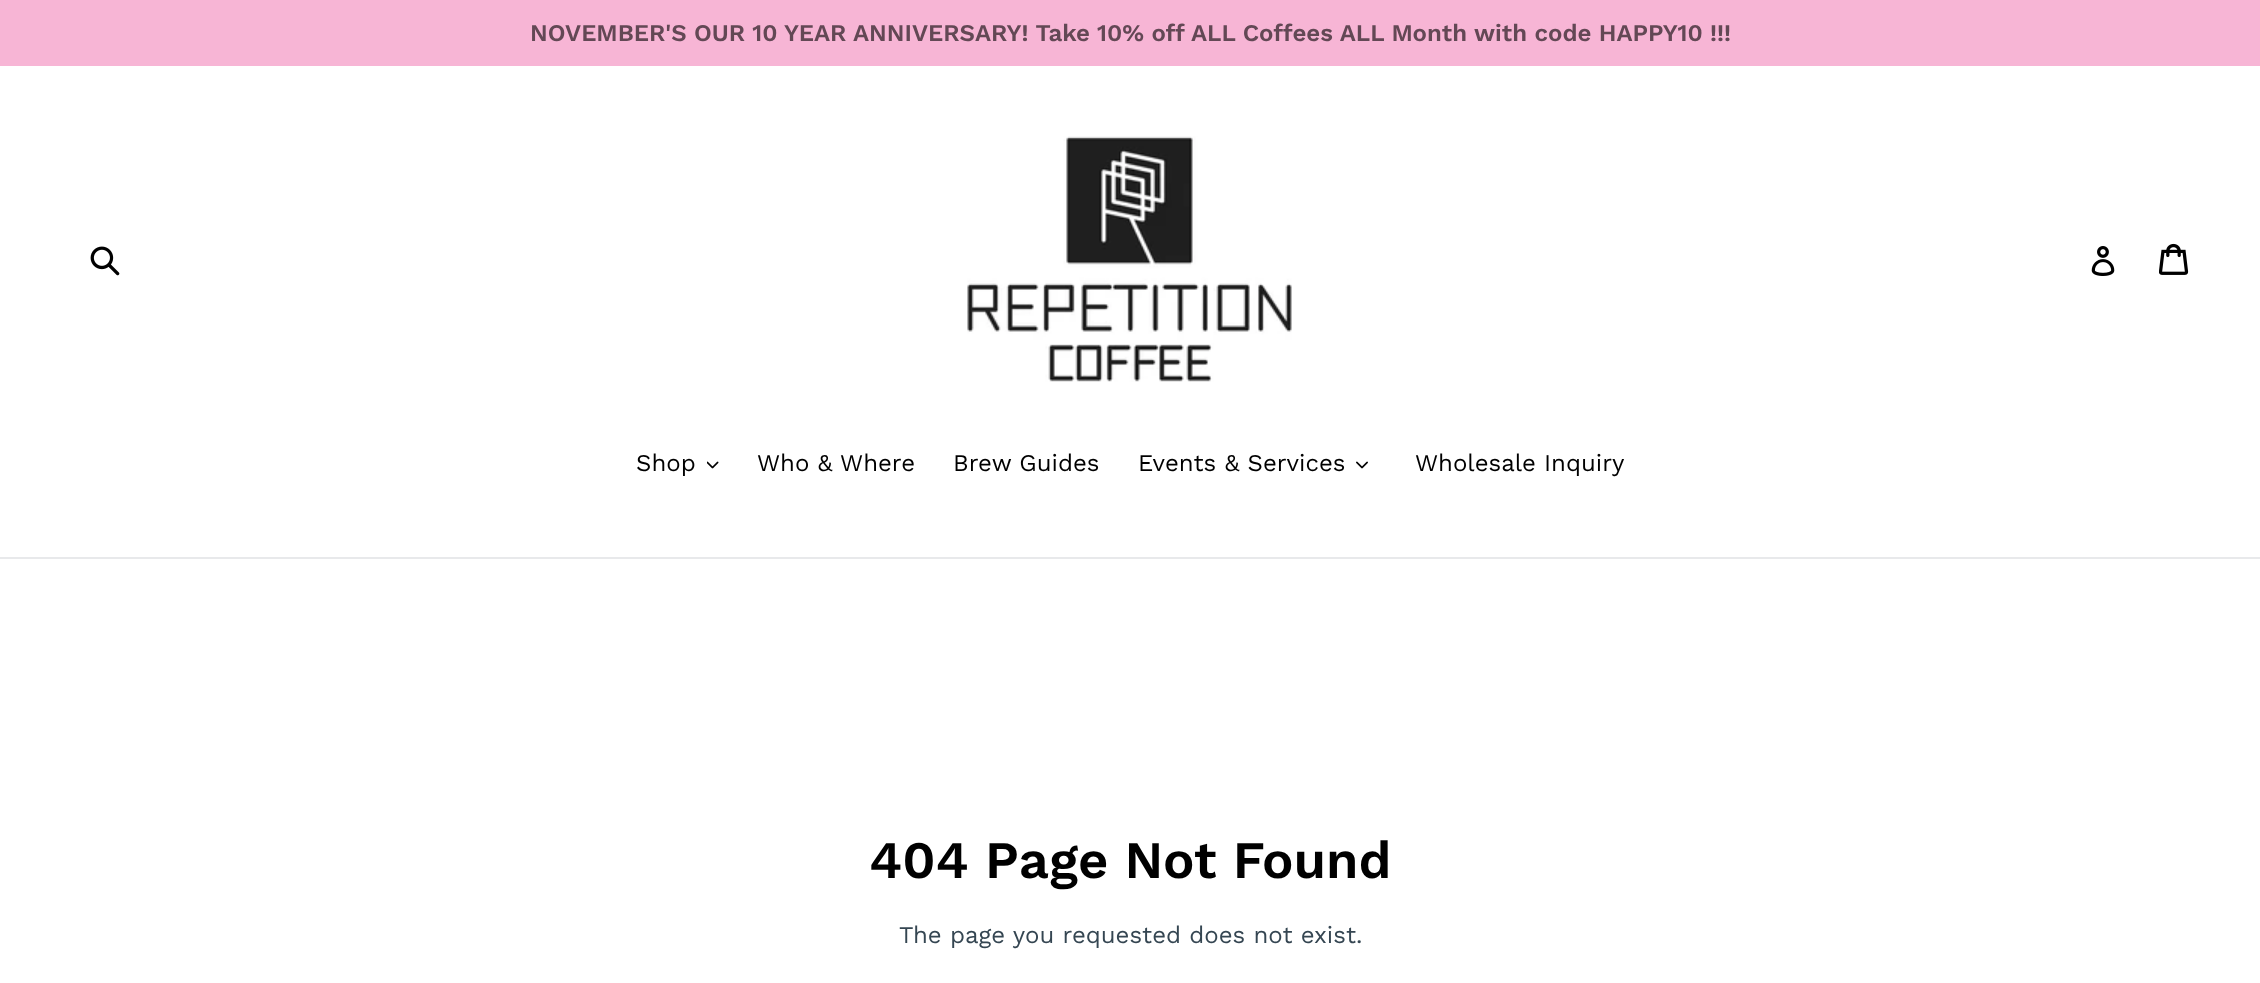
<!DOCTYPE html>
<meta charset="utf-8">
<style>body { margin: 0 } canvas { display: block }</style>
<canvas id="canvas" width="2260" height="983"></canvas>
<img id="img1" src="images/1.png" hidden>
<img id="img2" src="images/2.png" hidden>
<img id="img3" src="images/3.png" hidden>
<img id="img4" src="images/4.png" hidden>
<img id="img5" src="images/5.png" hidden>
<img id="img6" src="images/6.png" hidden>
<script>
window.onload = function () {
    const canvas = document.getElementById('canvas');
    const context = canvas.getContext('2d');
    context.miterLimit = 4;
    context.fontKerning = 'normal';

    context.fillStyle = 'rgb(255, 255, 255)';
    context.fillRect(0, 0, 2260, 983);
    context.fillStyle = 'rgb(247, 181, 213)';
    context.fillRect(0, 0, 2260, 66);
    context.drawImage(document.getElementById('img1'), 90, 246, 30, 30);
    context.drawImage(document.getElementById('img2'), 967, 136, 325, 246);
    context.drawImage(document.getElementById('img3'), 2091, 246, 24, 30);
    context.drawImage(document.getElementById('img4'), 2159, 243, 30, 32);
    context.fillStyle = 'rgb(232, 233, 235)';
    context.fillRect(0, 557, 2260, 2);
    context.drawImage(document.getElementById('img5'), 707, 461, 12, 8);
    context.drawImage(document.getElementById('img6'), 1356, 461, 12, 8);
    context.font = '600 24px Work Sans';
    context.fillStyle = 'rgb(99, 72, 85)';
    context.fillText('NOVEMBER\'S OUR 10 YEAR ANNIVERSARY! Take 10% off ALL Coffees ALL Month with code HAPPY10 !!!', 530, 41);
    context.font = '24px Work Sans';
    context.fillStyle = 'rgb(0, 0, 0)';
    context.fillText('Shop', 636, 471);
    context.fillText('Who & Where', 757, 471);
    context.fillText('Brew Guides', 953, 471);
    context.fillText('Events & Services', 1138, 471);
    context.fillText('Wholesale Inquiry', 1415, 471);
    context.font = '600 52.5px Work Sans';
    context.fillText('404 Page Not Found', 869, 878);
    context.font = '24px Work Sans';
    context.fillStyle = 'rgb(53, 70, 82)';
    context.fillText('The page you requested does not exist.', 899, 943);
};
</script>
